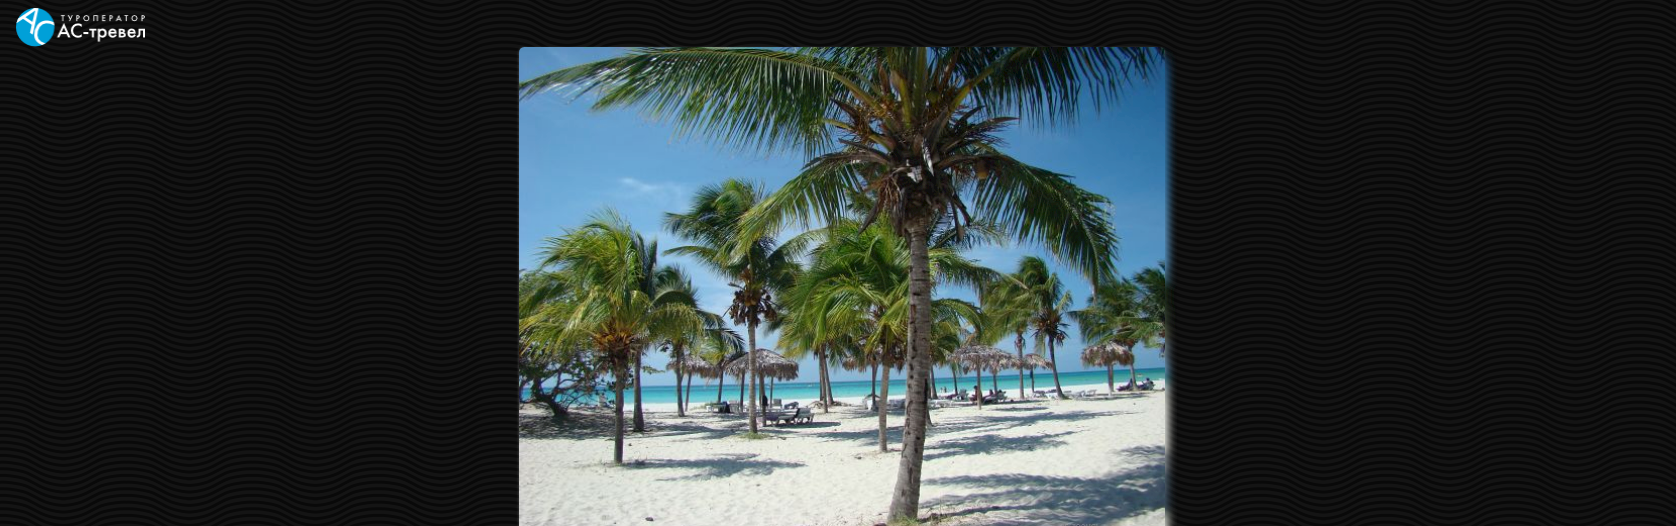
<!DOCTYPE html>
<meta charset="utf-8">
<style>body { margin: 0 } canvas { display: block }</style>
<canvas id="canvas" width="1676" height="526"></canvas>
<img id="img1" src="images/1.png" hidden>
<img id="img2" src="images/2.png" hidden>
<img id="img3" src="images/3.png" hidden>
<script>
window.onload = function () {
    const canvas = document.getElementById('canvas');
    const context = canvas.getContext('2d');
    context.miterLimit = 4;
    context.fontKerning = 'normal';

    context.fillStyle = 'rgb(255, 255, 255)';
    context.fillRect(0, 0, 1676, 526);
    context.drawImage(document.getElementById('img1'), 0, 0, 1676, 526);
    context.drawImage(document.getElementById('img2'), 16, 8, 129, 39);
    context.fillStyle = 'rgba(255, 255, 255, 0.25)';
    context.filter = 'blur(1.5px)';
    context.beginPath();
    context.roundRect(519, 48, 646, 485, 5);
    context.fill();
    context.filter = 'none';
    context.drawImage(document.getElementById('img3'), 519, 47, 658, 479);
};
</script>
